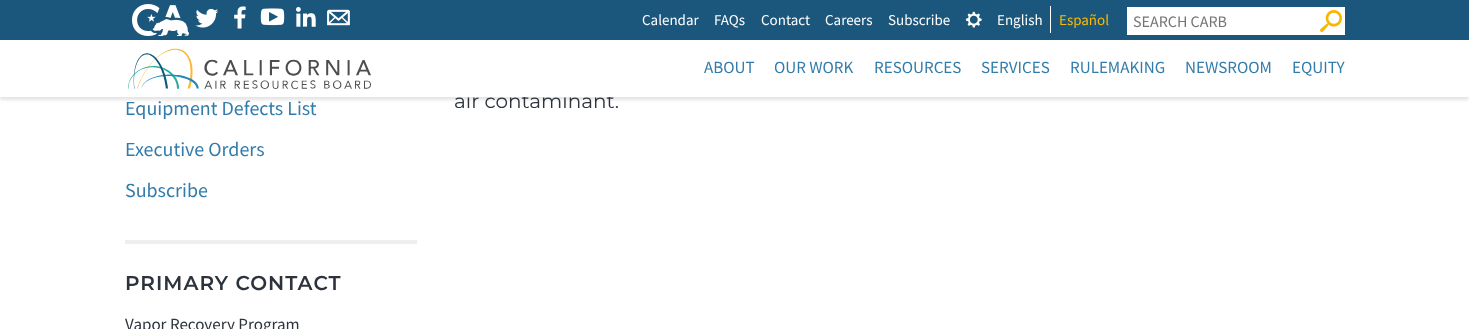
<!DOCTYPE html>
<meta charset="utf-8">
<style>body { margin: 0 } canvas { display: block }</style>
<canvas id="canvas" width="1469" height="329"></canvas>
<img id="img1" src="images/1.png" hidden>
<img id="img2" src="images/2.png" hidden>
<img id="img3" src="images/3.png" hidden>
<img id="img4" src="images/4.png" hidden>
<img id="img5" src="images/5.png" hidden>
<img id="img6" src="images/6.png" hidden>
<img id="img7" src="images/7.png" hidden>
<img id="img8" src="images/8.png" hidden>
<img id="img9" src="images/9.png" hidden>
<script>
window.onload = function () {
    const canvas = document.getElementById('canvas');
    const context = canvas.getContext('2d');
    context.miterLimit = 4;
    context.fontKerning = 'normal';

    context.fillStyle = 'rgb(255, 255, 255)';
    context.fillRect(0, 0, 1469, 329);
    context.fillStyle = 'rgba(0, 0, 0, 0.1)';
    context.filter = 'blur(1.5px)';
    context.beginPath();
    context.rect(0, 3, 1469, 97);
    context.fill();
    context.filter = 'none';
    context.fillStyle = 'rgb(27, 87, 125)';
    context.fillRect(0, 0, 1469, 40);
    context.drawImage(document.getElementById('img1'), 195, 8, 23, 20);
    context.drawImage(document.getElementById('img2'), 234, 6, 12, 23);
    context.drawImage(document.getElementById('img3'), 260, 8, 25, 18);
    context.drawImage(document.getElementById('img4'), 296, 7, 20, 20);
    context.drawImage(document.getElementById('img5'), 327, 9, 23, 17);
    context.drawImage(document.getElementById('img6'), 965, 11, 17, 17);
    context.fillStyle = 'rgb(255, 255, 255)';
    context.fillRect(1050, 6, 1, 27);
    context.fillRect(1127, 7, 218, 28);
    context.drawImage(document.getElementById('img7'), 1320, 10, 22, 22);
    context.drawImage(document.getElementById('img8'), 132, 4, 57, 32);
    context.fillStyle = 'rgb(238, 238, 238)';
    context.fillRect(125, 240, 292, 4);
    context.font = '15px Source Sans Pro';
    context.fillStyle = 'rgb(255, 255, 255)';
    context.fillText('Calendar', 642, 25);
    context.fillText('FAQs', 714, 25);
    context.fillText('Contact', 761, 25);
    context.fillText('Careers', 825, 25);
    context.fillText('Subscribe', 888, 25);
    context.fillText('English', 997, 25);
    context.fillStyle = 'rgb(252, 187, 0)';
    context.fillText('Español', 1059, 25);
    context.font = '16px Source Sans Pro';
    context.fillStyle = 'rgb(117, 117, 117)';
    context.fillText('SEARCH CARB', 1133, 27);
    context.font = '20px Source Sans Pro';
    context.fillStyle = 'rgb(50, 124, 172)';
    context.fillText('Equipment Defects List', 125, 115);
    context.fillText('Executive Orders', 125, 156);
    context.fillText('Subscribe', 125, 197);
    context.letterSpacing = '1px';
    context.font = '600 20px Montserrat';
    context.fillStyle = 'rgb(45, 51, 61)';
    context.fillText('PRIMARY CONTACT', 125, 290);
    context.letterSpacing = '0px';
    context.font = '17px Source Sans Pro';
    context.fillText('Vapor Recovery Program', 125, 330);
    context.font = '20px Montserrat';
    context.fillText('air contaminant.', 454, 108);
    context.fillStyle = 'rgb(255, 255, 255)';
    context.fillRect(0, 40, 1469, 57);
    context.font = '17px Source Sans Pro';
    context.fillStyle = 'rgb(50, 124, 172)';
    context.fillText('EQUITY', 1292, 73);
    context.fillText('NEWSROOM', 1185, 73);
    context.fillText('RULEMAKING', 1070, 73);
    context.fillText('SERVICES', 981, 73);
    context.fillText('RESOURCES', 874, 73);
    context.fillText('OUR WORK', 774, 73);
    context.fillText('ABOUT', 704, 73);
    context.drawImage(document.getElementById('img9'), 127, 48, 244, 41);
};
</script>
